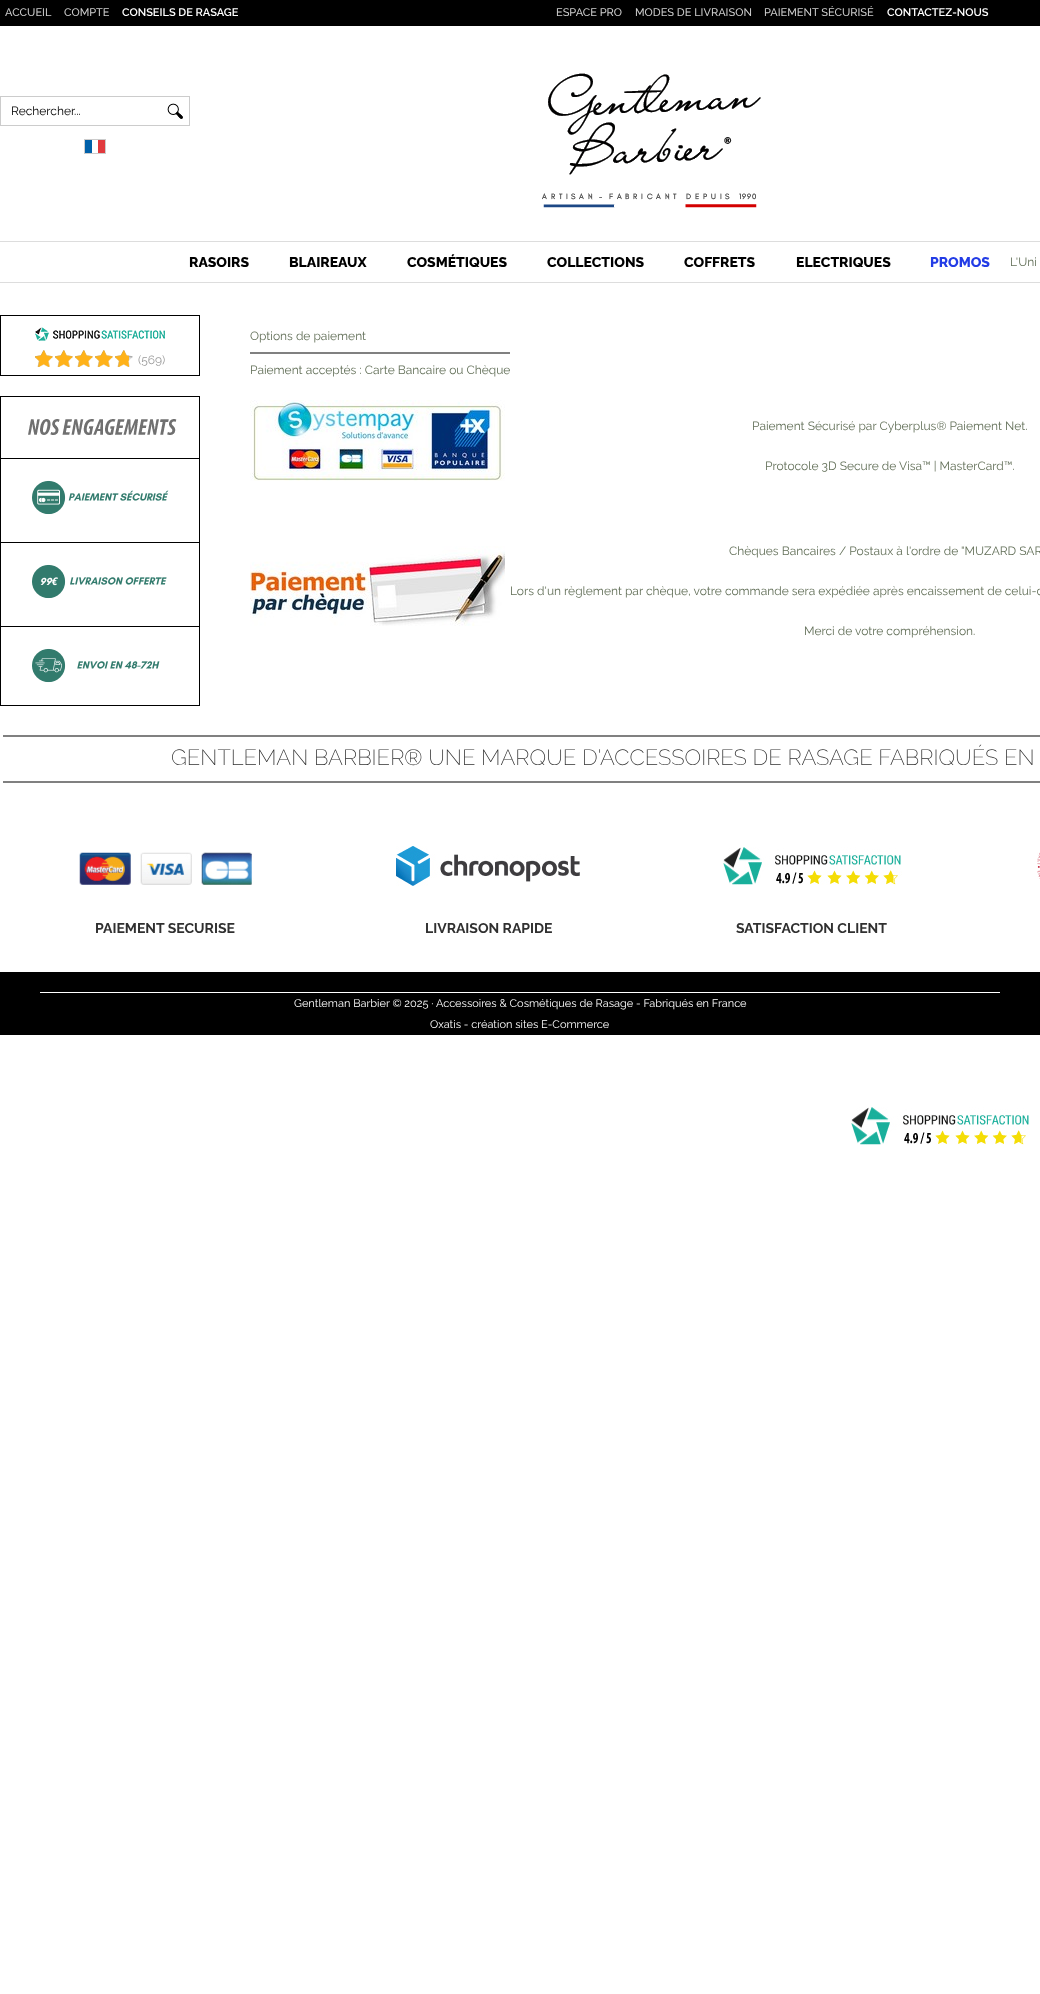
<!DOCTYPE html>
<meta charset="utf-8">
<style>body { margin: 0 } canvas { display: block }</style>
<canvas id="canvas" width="1040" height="1994"></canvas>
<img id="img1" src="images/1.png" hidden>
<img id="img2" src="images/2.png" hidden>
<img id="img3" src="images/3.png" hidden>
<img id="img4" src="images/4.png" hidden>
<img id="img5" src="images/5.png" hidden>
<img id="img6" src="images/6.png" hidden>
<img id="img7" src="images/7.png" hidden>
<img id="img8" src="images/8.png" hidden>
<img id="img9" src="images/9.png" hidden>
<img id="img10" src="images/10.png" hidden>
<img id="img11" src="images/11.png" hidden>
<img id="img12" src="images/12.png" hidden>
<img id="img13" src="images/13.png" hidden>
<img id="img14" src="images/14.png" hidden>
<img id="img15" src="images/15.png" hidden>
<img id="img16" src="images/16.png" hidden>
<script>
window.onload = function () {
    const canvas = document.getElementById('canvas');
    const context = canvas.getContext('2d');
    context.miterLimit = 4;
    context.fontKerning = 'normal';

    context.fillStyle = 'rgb(255, 255, 255)';
    context.fillRect(0, 0, 1040, 1994);
    context.fillStyle = 'rgb(0, 0, 0)';
    context.fillRect(0, 0, 1040, 26);
    context.strokeStyle = 'rgb(204, 204, 204)';
    context.strokeRect(0.5, 96.5, 189, 29);
    context.drawImage(document.getElementById('img1'), 167, 103, 16, 16);
    context.drawImage(document.getElementById('img2'), 85, 140, 20, 13);
    context.strokeRect(84.5, 139.5, 21, 14);
    context.drawImage(document.getElementById('img3'), 542, 73, 219, 135);
    context.fillStyle = 'rgb(221, 221, 221)';
    context.fillRect(0, 241, 1040, 1);
    context.fillRect(0, 282, 1040, 1);
    context.strokeStyle = 'rgb(0, 0, 0)';
    context.strokeRect(0.5, 315.5, 199, 60);
    context.drawImage(document.getElementById('img4'), 35, 327, 130, 14);
    context.drawImage(document.getElementById('img5'), 35, 350, 98, 17);
    context.drawImage(document.getElementById('img6'), 35, 350, 94, 17);
    context.strokeRect(0.5, 396.5, 199, 309);
    context.drawImage(document.getElementById('img7'), 28, 419, 149, 16);
    context.fillStyle = 'rgb(0, 0, 0)';
    context.fillRect(1, 458, 198, 1);
    context.drawImage(document.getElementById('img8'), 32, 480, 137, 35);
    context.fillRect(1, 542, 198, 1);
    context.drawImage(document.getElementById('img9'), 32, 564, 135, 35);
    context.fillRect(1, 626, 198, 1);
    context.drawImage(document.getElementById('img10'), 32, 648, 128, 35);
    context.fillStyle = 'rgb(128, 128, 128)';
    context.fillRect(250, 352, 260, 2);
    context.drawImage(document.getElementById('img11'), 250, 400, 255, 81);
    context.drawImage(document.getElementById('img12'), 250, 546, 255, 80);
    context.fillRect(3, 735, 1037, 2);
    context.fillRect(3, 781, 1037, 2);
    context.drawImage(document.getElementById('img13'), 1037, 852, 3, 27);
    context.drawImage(document.getElementById('img14'), 79, 852, 175, 33);
    context.drawImage(document.getElementById('img15'), 396, 846, 184, 40);
    context.drawImage(document.getElementById('img16'), 723, 847, 179, 38);
    context.fillStyle = 'rgb(0, 0, 0)';
    context.fillRect(0, 972, 1040, 63);
    context.fillStyle = 'rgb(255, 255, 255)';
    context.fillRect(40, 992, 960, 1);
    context.drawImage(document.getElementById('img16'), 851, 1107, 179, 38);
    context.font = '500 11px Raleway';
    context.fillStyle = 'rgb(204, 204, 204)';
    context.fillText('ACCUEIL', 5, 16);
    context.fillText('COMPTE', 64, 16);
    context.font = '600 11px Raleway';
    context.fillStyle = 'rgb(255, 255, 255)';
    context.fillText('CONSEILS DE RASAGE', 122, 16);
    context.font = '500 11px Raleway';
    context.fillStyle = 'rgb(204, 204, 204)';
    context.fillText('ESPACE PRO', 556, 16);
    context.fillText('MODES DE LIVRAISON', 635, 16);
    context.fillText('PAIEMENT SÉCURISÉ', 764, 16);
    context.font = '600 11px Raleway';
    context.fillStyle = 'rgb(255, 255, 255)';
    context.fillText('CONTACTEZ-NOUS', 887, 16);
    context.font = '12px Raleway';
    context.fillStyle = 'rgb(0, 0, 0)';
    context.fillText('Rechercher...', 11, 115);
    context.font = '800 14px Raleway';
    context.fillText('RASOIRS', 189, 267);
    context.fillText('BLAIREAUX', 289, 267);
    context.fillText('COSMÉTIQUES', 407, 267);
    context.fillText('COLLECTIONS', 547, 267);
    context.fillText('COFFRETS', 684, 267);
    context.fillText('ELECTRIQUES', 796, 267);
    context.fillStyle = 'rgb(35, 60, 230)';
    context.fillText('PROMOS', 930, 267);
    context.font = '12px Raleway';
    context.fillStyle = 'rgb(99, 112, 89)';
    context.fillText('L\'Uni', 1010, 266);
    context.fillStyle = 'rgb(153, 153, 153)';
    context.fillText('(569)', 138, 364);
    context.fillStyle = 'rgb(99, 112, 89)';
    context.fillText('Options de paiement', 250, 340);
    context.fillText('Paiement acceptés : Carte Bancaire ou Chèque', 250, 374);
    context.fillText('Paiement Sécurisé par Cyberplus® Paiement Net.', 752, 430);
    context.fillText('Protocole 3D Secure de Visa™ | MasterCard™.', 765, 470);
    context.fillText('Chèques Bancaires / Postaux à l\'ordre de "MUZARD SAR', 729, 555);
    context.fillText('Lors d\'un règlement par chèque, votre commande sera expédiée après encaissement de celui-c', 510, 595);
    context.fillText('Merci de votre compréhension.', 804, 635);
    context.font = '200 22px Raleway';
    context.fillStyle = 'rgb(48, 48, 48)';
    context.fillText('GENTLEMAN BARBIER® UNE MARQUE D\'ACCESSOIRES DE RASAGE FABRIQUÉS EN', 171, 765);
    context.font = 'bold 14px Raleway';
    context.fillText('PAIEMENT SECURISE', 95, 933);
    context.fillText('LIVRAISON RAPIDE', 425, 933);
    context.fillText('SATISFACTION CLIENT', 736, 933);
    context.font = '11px Raleway';
    context.fillStyle = 'rgb(255, 255, 255)';
    context.fillText('Gentleman Barbier © 2025 · Accessoires & Cosmétiques de Rasage - Fabriqués en France', 294, 1007);
    context.fillText('Oxatis - création sites E-Commerce', 430, 1028);
};
</script>
